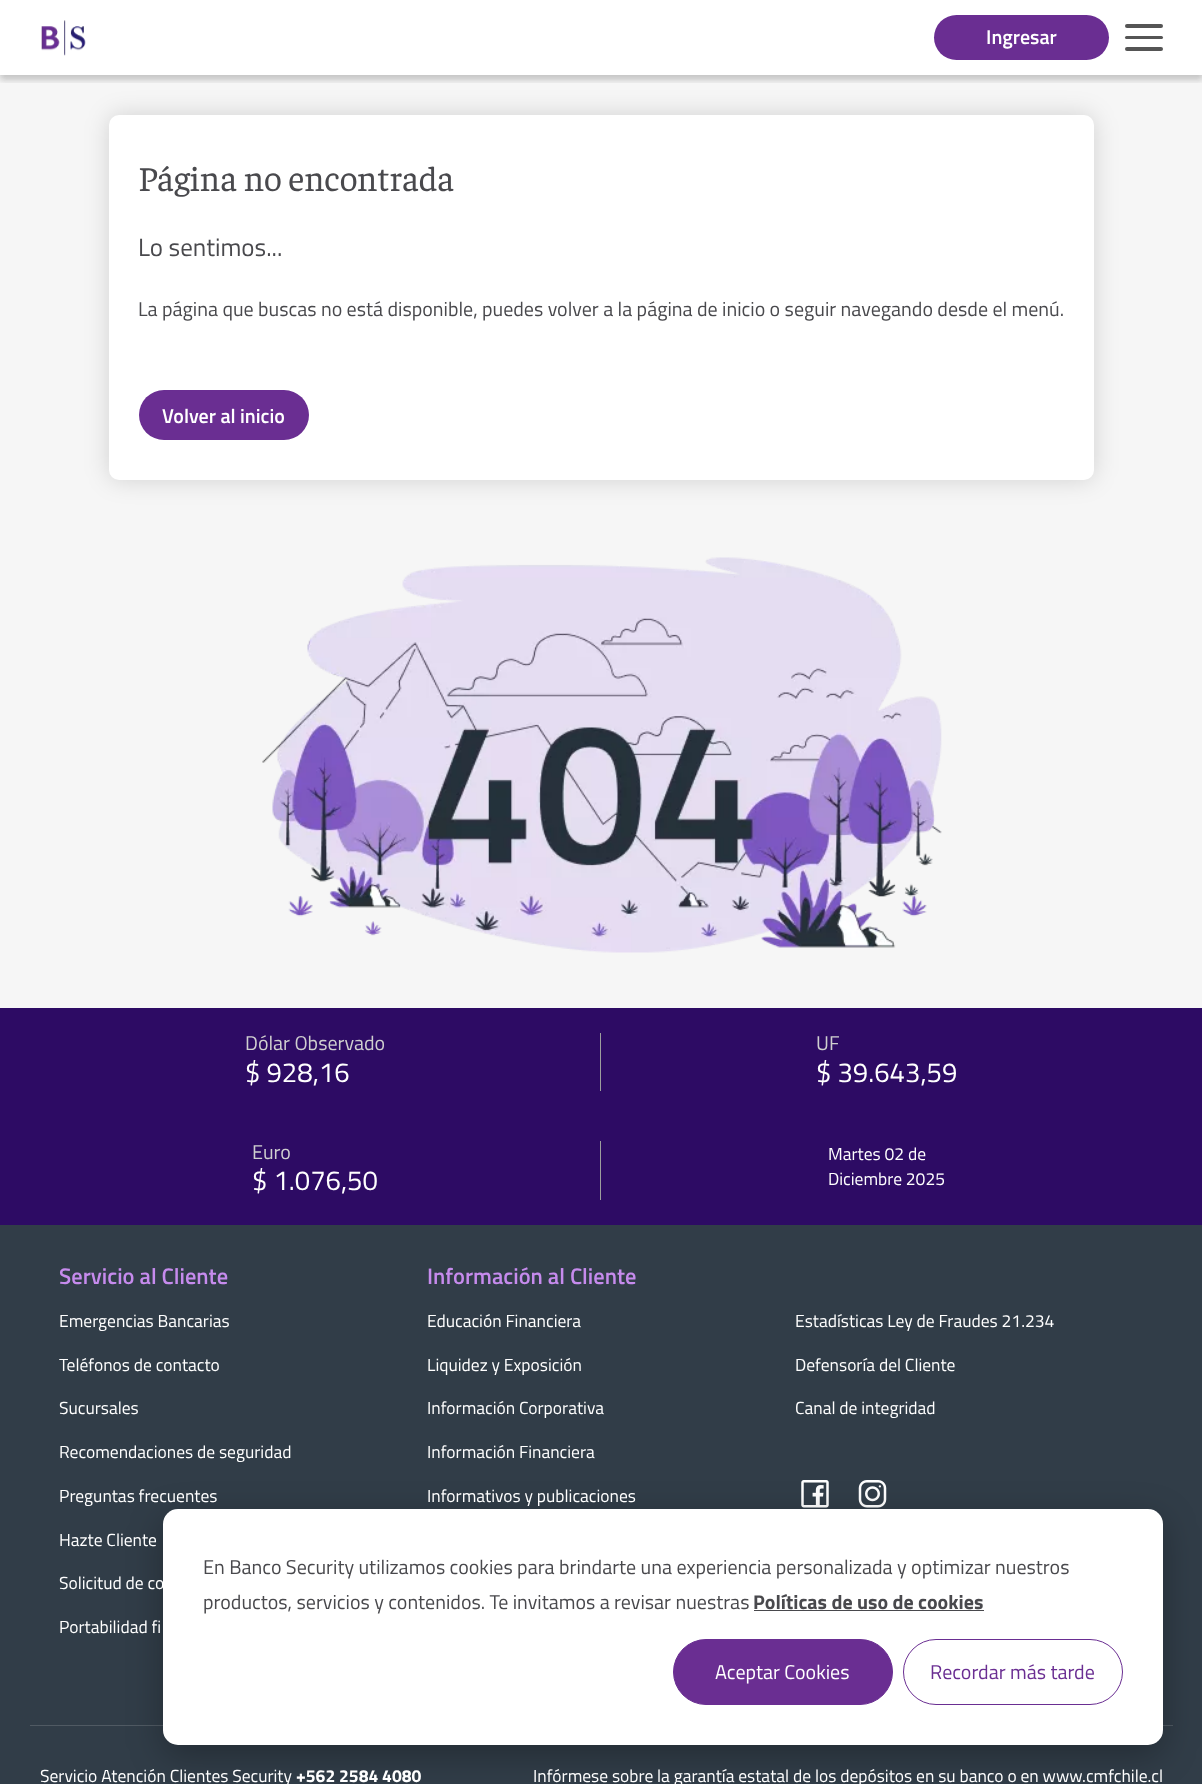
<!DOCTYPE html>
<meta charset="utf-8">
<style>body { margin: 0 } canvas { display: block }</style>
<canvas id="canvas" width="1202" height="1784"></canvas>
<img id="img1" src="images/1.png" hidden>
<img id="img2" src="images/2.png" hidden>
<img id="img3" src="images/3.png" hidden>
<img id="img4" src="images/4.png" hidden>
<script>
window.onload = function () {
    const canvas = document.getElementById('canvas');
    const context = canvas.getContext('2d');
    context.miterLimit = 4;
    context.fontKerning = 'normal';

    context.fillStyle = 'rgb(255, 255, 255)';
    context.fillRect(0, 0, 1202, 1784);
    context.fillStyle = 'rgb(246, 246, 246)';
    context.fillRect(0, 75, 1202, 933);
    context.save();
    context.beginPath();
    context.rect(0, 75, 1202, 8);
    context.clip();
    context.fillStyle = 'rgba(0, 0, 0, 0.1)';
    context.filter = 'blur(3px)';
    context.beginPath();
    context.rect(0, 5, 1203, 75);
    context.fill();
    context.filter = 'none';
    context.restore();
    context.drawImage(document.getElementById('img1'), 41, 20, 45, 36);
    context.fillStyle = 'rgb(106, 46, 146)';
    context.beginPath();
    context.roundRect(934, 15, 175, 45, 22.5);
    context.fill();
    context.fillStyle = 'rgb(85, 85, 85)';
    context.beginPath();
    context.roundRect(1125, 47, 38, 4, 2);
    context.fill();
    context.beginPath();
    context.roundRect(1125, 36, 38, 3, 1.5);
    context.fill();
    context.beginPath();
    context.roundRect(1125, 24, 38, 4, 2);
    context.fill();
    context.save();
    context.beginPath();
    context.rect(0, 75, 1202, 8);
    context.clip();
    context.fillStyle = 'rgba(0, 0, 0, 0.1)';
    context.filter = 'blur(3px)';
    context.beginPath();
    context.rect(0, 5, 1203, 75);
    context.fill();
    context.filter = 'none';
    context.restore();
    context.fillStyle = 'rgba(0, 0, 0, 0.15)';
    context.filter = 'blur(12.5px)';
    context.beginPath();
    context.roundRect(109, 115, 985, 365, 10);
    context.fill();
    context.filter = 'none';
    context.fillStyle = 'rgb(255, 255, 255)';
    context.beginPath();
    context.roundRect(109, 115, 985, 365, 10);
    context.fill();
    context.fillStyle = 'rgb(106, 46, 146)';
    context.beginPath();
    context.roundRect(139, 390, 170, 50, 25);
    context.fill();
    context.drawImage(document.getElementById('img2'), 262, 557, 680, 396);
    context.fillStyle = 'rgb(45, 11, 100)';
    context.fillRect(0, 1008, 1202, 217);
    context.fillStyle = 'rgb(157, 158, 157)';
    context.fillRect(600, 1033, 1, 58);
    context.fillRect(600, 1141, 1, 59);
    context.fillStyle = 'rgb(49, 61, 72)';
    context.fillRect(0, 1225, 1202, 559);
    context.drawImage(document.getElementById('img3'), 801, 1480, 28, 28);
    context.drawImage(document.getElementById('img4'), 858, 1480, 29, 28);
    context.fillStyle = 'rgb(80, 90, 99)';
    context.fillRect(30, 1725, 1143, 1);
    context.fillStyle = 'rgba(0, 0, 0, 0.28)';
    context.filter = 'blur(17.5px)';
    context.beginPath();
    context.roundRect(163, 1519, 1000, 236, 15);
    context.fill();
    context.filter = 'none';
    context.fillStyle = 'rgb(255, 255, 255)';
    context.beginPath();
    context.roundRect(163, 1509, 1000, 236, 15);
    context.fill();
    context.fillStyle = 'rgb(73, 73, 77)';
    context.fillRect(754, 1610, 230, 1);
    context.fillStyle = 'rgb(106, 46, 146)';
    context.beginPath();
    context.roundRect(673.5, 1639.5, 219, 65, 32.5);
    context.fill();
    context.strokeStyle = 'rgb(106, 46, 146)';
    context.stroke();
    context.beginPath();
    context.roundRect(903.5, 1639.5, 219, 65, 32.5);
    context.stroke();
    context.font = '600 20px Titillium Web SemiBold';
    context.fillStyle = 'rgb(255, 255, 255)';
    context.fillText('Ingresar', 986, 44);
    context.font = '35px Faustina';
    context.fillStyle = 'rgb(73, 73, 77)';
    context.fillText('Página no encontrada', 138, 191);
    context.font = '25px Titillium Web';
    context.fillText('Lo sentimos...', 138, 256);
    context.font = '20px Titillium Web';
    context.fillText('La página que buscas no está disponible, puedes volver a la página de inicio o seguir navegando desde el menú.', 138, 316);
    context.font = '600 20px Titillium Web SemiBold';
    context.fillStyle = 'rgb(255, 255, 255)';
    context.fillText('Volver al inicio', 162, 423);
    context.font = '20px Titillium Web';
    context.fillStyle = 'rgb(207, 207, 207)';
    context.fillText('Dólar Observado', 245, 1050);
    context.font = '27.5px Titillium Web';
    context.fillStyle = 'rgb(255, 255, 255)';
    context.fillText('$ 928,16', 245, 1082);
    context.font = '20px Titillium Web';
    context.fillStyle = 'rgb(207, 207, 207)';
    context.fillText('UF', 816, 1050);
    context.font = '27.5px Titillium Web';
    context.fillStyle = 'rgb(255, 255, 255)';
    context.fillText('$ 39.643,59', 816, 1082);
    context.font = '20px Titillium Web';
    context.fillStyle = 'rgb(207, 207, 207)';
    context.fillText('Euro', 252, 1159);
    context.font = '27.5px Titillium Web';
    context.fillStyle = 'rgb(255, 255, 255)';
    context.fillText('$ 1.076,50', 252, 1190);
    context.font = '17.5px Titillium Web';
    context.fillText('Martes 02 de', 828, 1160);
    context.fillText('Diciembre 2025', 828, 1185);
    context.font = '600 22.5px Titillium Web SemiBold';
    context.fillStyle = 'rgb(198, 139, 237)';
    context.fillText('Servicio al Cliente', 59, 1284);
    context.font = '17.5px Titillium Web';
    context.fillStyle = 'rgb(255, 255, 255)';
    context.fillText('Emergencias Bancarias', 59, 1327);
    context.fillText('Teléfonos de contacto', 59, 1371);
    context.fillText('Sucursales', 59, 1414);
    context.fillText('Recomendaciones de seguridad', 59, 1458);
    context.fillText('Preguntas frecuentes', 59, 1502);
    context.fillText('Hazte Cliente', 59, 1546);
    context.fillText('Solicitud de co', 59, 1589);
    context.fillText('Portabilidad fi', 59, 1633);
    context.font = '600 22.5px Titillium Web SemiBold';
    context.fillStyle = 'rgb(198, 139, 237)';
    context.fillText('Información al Cliente', 427, 1284);
    context.font = '17.5px Titillium Web';
    context.fillStyle = 'rgb(255, 255, 255)';
    context.fillText('Educación Financiera', 427, 1327);
    context.fillText('Liquidez y Exposición', 427, 1371);
    context.fillText('Información Corporativa', 427, 1414);
    context.fillText('Información Financiera', 427, 1458);
    context.fillText('Informativos y publicaciones', 427, 1502);
    context.fillText('Estadísticas Ley de Fraudes 21.234', 795, 1327);
    context.fillText('Defensoría del Cliente', 795, 1371);
    context.fillText('Canal de integridad', 795, 1414);
    context.fillText('Servicio Atención Clientes Security', 40, 1782);
    context.font = 'bold 17.5px Titillium Web';
    context.fillText('+562 2584 4080', 296, 1782);
    context.font = '17.5px Titillium Web';
    context.fillText('Infórmese sobre la garantía estatal de los depósitos en su banco o en www.cmfchile.cl', 533, 1782);
    context.font = '20px Titillium Web';
    context.fillStyle = 'rgb(73, 73, 77)';
    context.fillText('En Banco Security utilizamos cookies para brindarte una experiencia personalizada y optimizar nuestros', 203, 1574);
    context.fillText('productos, servicios y contenidos. Te invitamos a revisar nuestras', 203, 1609);
    context.font = 'bold 20px Titillium Web';
    context.fillText('Políticas de uso de cookies', 753, 1609);
    context.font = '20px Titillium Web';
    context.fillStyle = 'rgb(255, 255, 255)';
    context.fillText('Aceptar Cookies', 715, 1679);
    context.fillStyle = 'rgb(106, 46, 146)';
    context.fillText('Recordar más tarde', 930, 1679);
};
</script>
